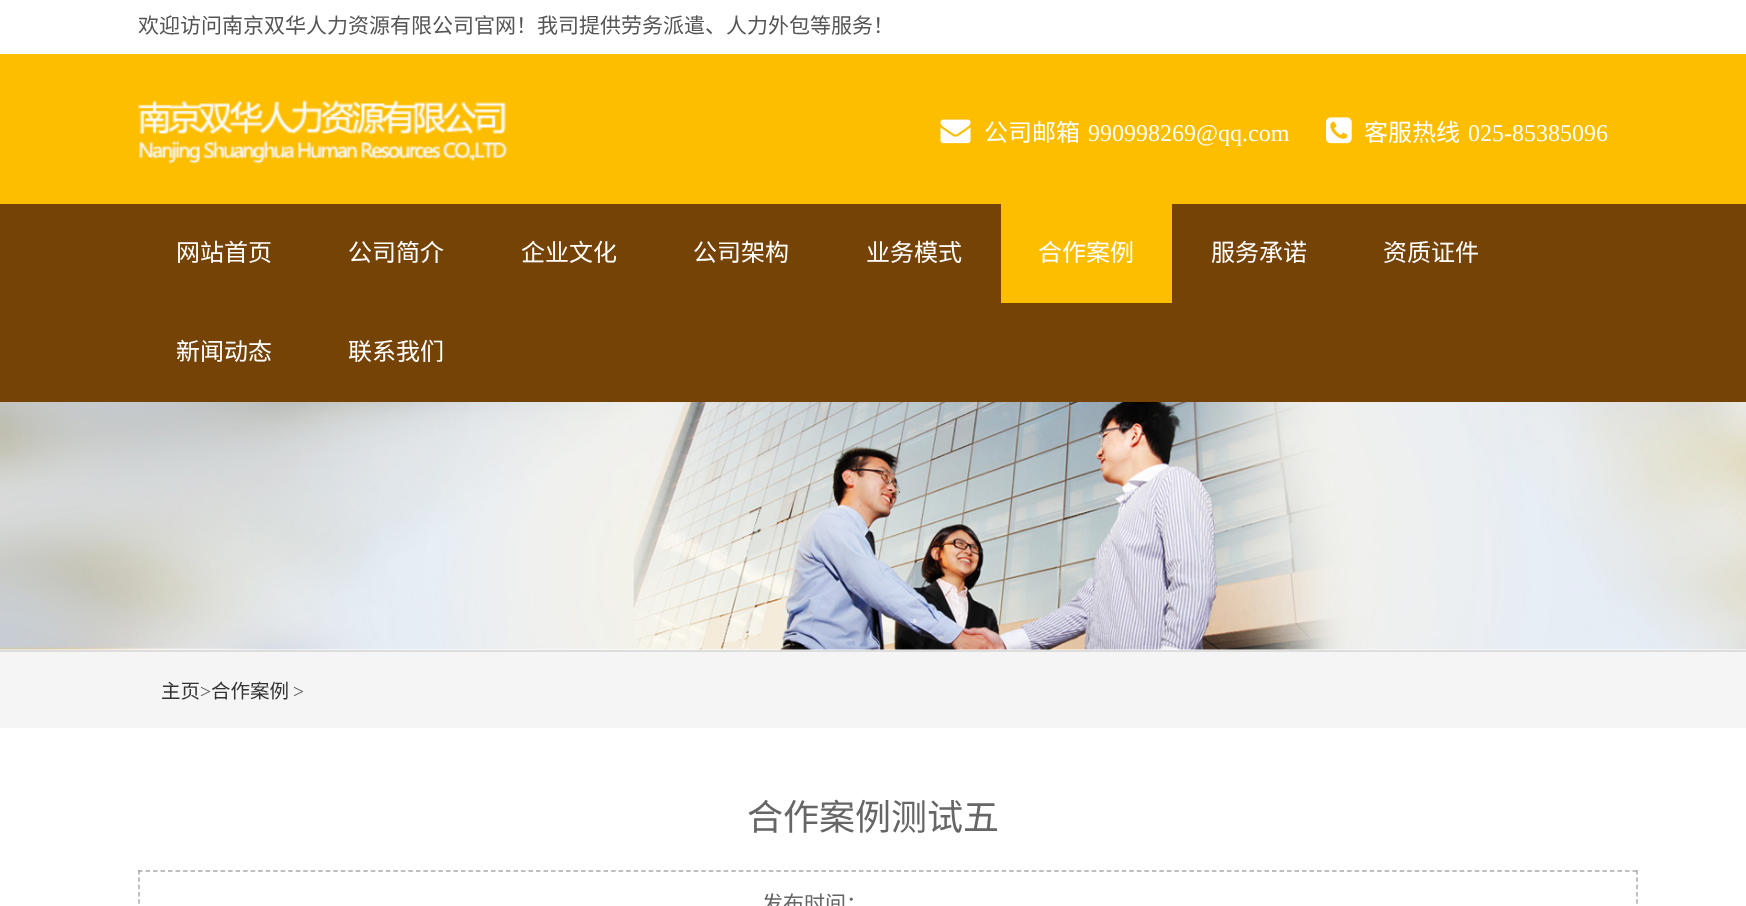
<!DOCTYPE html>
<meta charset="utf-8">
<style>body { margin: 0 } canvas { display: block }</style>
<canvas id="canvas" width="1746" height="906"></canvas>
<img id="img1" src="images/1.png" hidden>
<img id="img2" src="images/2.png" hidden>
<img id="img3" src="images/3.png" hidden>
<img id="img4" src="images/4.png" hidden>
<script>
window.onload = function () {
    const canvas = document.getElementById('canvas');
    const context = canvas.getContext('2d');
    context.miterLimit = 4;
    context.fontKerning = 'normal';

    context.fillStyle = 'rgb(255, 255, 255)';
    context.fillRect(0, 0, 1746, 906);
    context.fillStyle = 'rgb(254, 190, 0)';
    context.fillRect(0, 54, 1746, 150);
    context.drawImage(document.getElementById('img1'), 138, 100, 370, 64);
    context.drawImage(document.getElementById('img2'), 940, 119, 31, 25);
    context.drawImage(document.getElementById('img3'), 1326, 117, 26, 27);
    context.fillStyle = 'rgb(118, 67, 6)';
    context.fillRect(0, 204, 1746, 198);
    context.fillStyle = 'rgb(254, 190, 0)';
    context.fillRect(1001, 204, 171, 99);
    context.drawImage(document.getElementById('img4'), 0, 402, 1746, 248);
    context.fillStyle = 'rgb(245, 245, 245)';
    context.fillRect(0, 652, 1746, 76);
    context.fillStyle = 'rgb(221, 221, 221)';
    context.fillRect(0, 650, 1746, 2);
    context.beginPath();
    context.moveTo(138, 871);
    context.lineTo(1638, 871);
    context.strokeStyle = 'rgb(170, 170, 170)';
    context.lineWidth = 1.5;
    context.setLineDash([4.5, 3.01]);
    context.stroke();
    context.beginPath();
    context.moveTo(1637, 870);
    context.lineTo(1637, 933);
    context.setLineDash([4.5, 2.82]);
    context.stroke();
    context.beginPath();
    context.moveTo(139, 870);
    context.lineTo(139, 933);
    context.stroke();
    context.font = '21px Noto Sans CJK SC';
    context.fillStyle = 'rgb(85, 85, 85)';
    context.fillText('欢迎访问南京双华人力资源有限公司官网！我司提供劳务派遣、人力外包等服务！', 138, 33);
    context.font = '24px Noto Sans CJK SC';
    context.fillStyle = 'rgb(255, 255, 255)';
    context.fillText('公司邮箱', 984, 141);
    context.font = '24px Liberation Serif';
    context.fillText('990998269@qq.com', 1088, 141);
    context.font = '24px Noto Sans CJK SC';
    context.fillText('客服热线', 1364, 141);
    context.font = '24px Liberation Serif';
    context.fillText('025-85385096', 1468, 141);
    context.font = '24px Noto Sans CJK SC';
    context.fillText('网站首页', 176, 261);
    context.fillText('公司简介', 348, 261);
    context.fillText('企业文化', 521, 261);
    context.fillText('公司架构', 693, 261);
    context.fillText('业务模式', 866, 261);
    context.fillText('合作案例', 1038, 261);
    context.fillText('服务承诺', 1211, 261);
    context.fillText('资质证件', 1383, 261);
    context.fillText('新闻动态', 176, 360);
    context.fillText('联系我们', 348, 360);
    context.font = '19.5px Noto Sans CJK SC';
    context.fillStyle = 'rgb(51, 51, 51)';
    context.fillText('主页', 161, 698);
    context.font = '19.5px Liberation Serif';
    context.fillStyle = 'rgb(85, 85, 85)';
    context.fillText('>', 200, 698);
    context.font = '19.5px Noto Sans CJK SC';
    context.fillStyle = 'rgb(51, 51, 51)';
    context.fillText('合作案例', 211, 698);
    context.font = '19.5px Liberation Serif';
    context.fillStyle = 'rgb(85, 85, 85)';
    context.fillText('>', 293, 698);
    context.font = '36px Noto Sans CJK SC';
    context.fillStyle = 'rgb(102, 102, 102)';
    context.fillText('合作案例测试五', 747, 830);
    context.font = '21px Noto Sans CJK SC';
    context.fillText('发布时间：', 762, 911);
};
</script>
